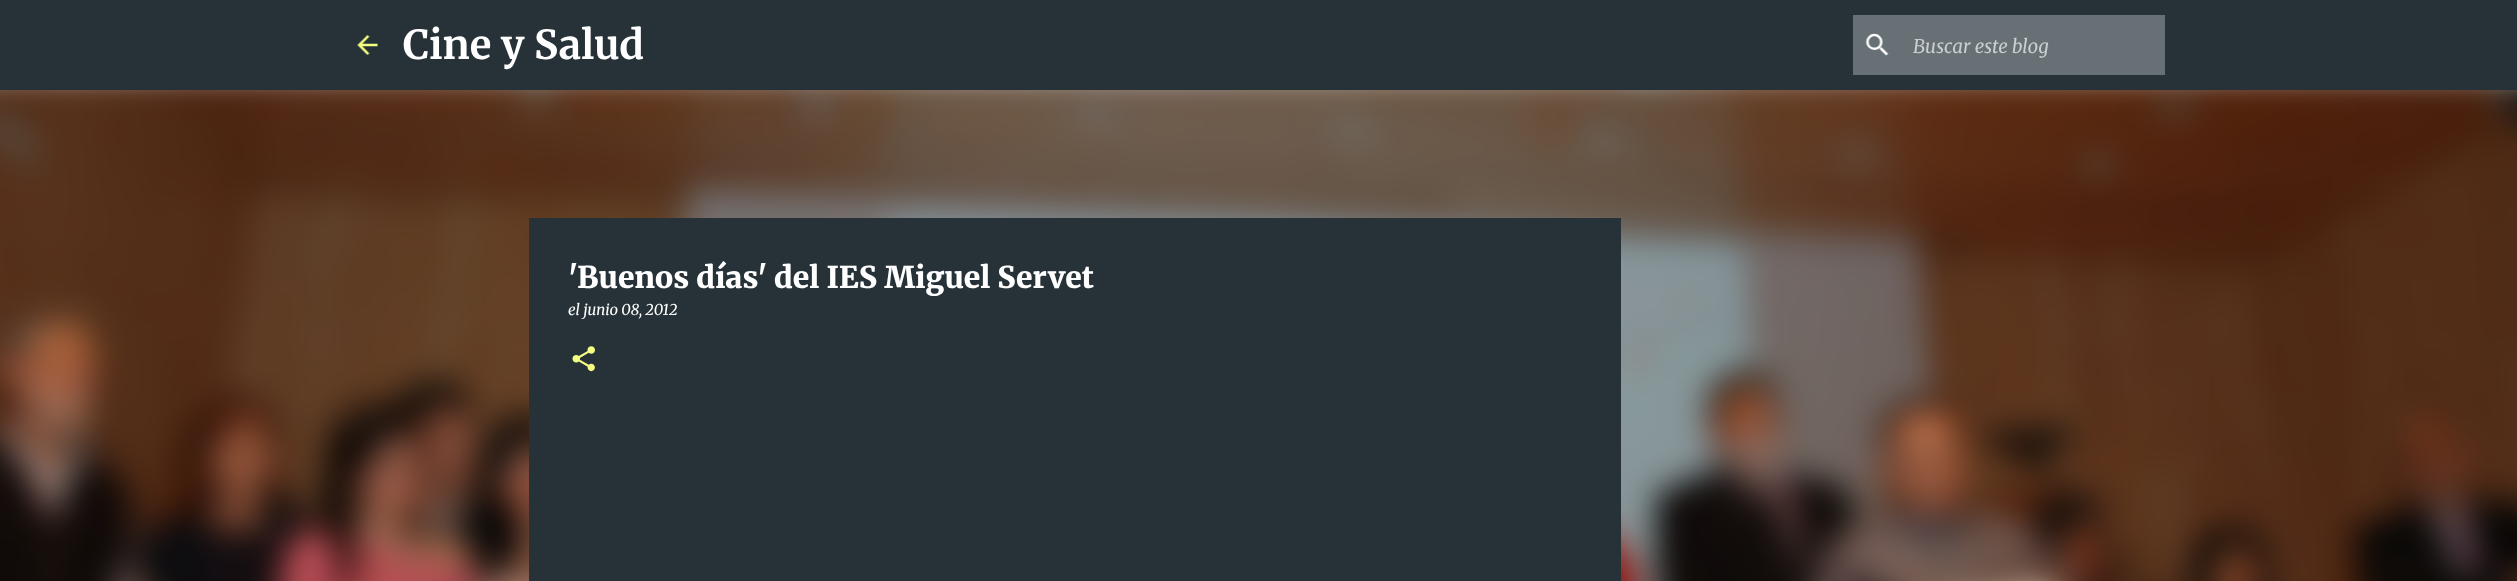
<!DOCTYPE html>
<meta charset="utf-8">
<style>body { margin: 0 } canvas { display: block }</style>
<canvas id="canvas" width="2517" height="581"></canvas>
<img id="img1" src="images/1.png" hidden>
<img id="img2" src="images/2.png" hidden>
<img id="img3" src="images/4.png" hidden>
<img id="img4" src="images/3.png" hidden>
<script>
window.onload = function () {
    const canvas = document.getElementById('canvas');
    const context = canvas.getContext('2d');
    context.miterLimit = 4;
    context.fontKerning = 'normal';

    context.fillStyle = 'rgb(255, 255, 255)';
    context.fillRect(0, 0, 2517, 581);
    context.fillStyle = 'rgb(38, 50, 56)';
    context.fillRect(0, 0, 2517, 90);
    context.drawImage(document.getElementById('img1'), 357, 35, 21, 20);
    context.fillStyle = 'rgb(103, 112, 116)';
    context.fillRect(1853, 15, 312, 60);
    context.drawImage(document.getElementById('img2'), 1865, 33, 24, 23);
    context.drawImage(document.getElementById('img3'), 0, 90, 2517, 491);
    context.fillStyle = 'rgb(38, 50, 56)';
    context.fillRect(529, 218, 1092, 363);
    context.drawImage(document.getElementById('img4'), 572, 346, 23, 26);
    context.font = 'bold 40px Merriweather';
    context.fillStyle = 'rgb(255, 255, 255)';
    context.fillText('Cine y Salud', 403, 59);
    context.font = 'italic 18.75px Merriweather';
    context.fillStyle = 'rgb(203, 206, 208)';
    context.fillText('Buscar este blog', 1913, 53);
    context.font = '900 30px Merriweather';
    context.fillStyle = 'rgb(255, 255, 255)';
    context.fillText('\'Buenos días\' del IES Miguel Servet', 568, 288);
    context.font = 'italic 15px Merriweather';
    context.fillText('el junio 08, 2012', 568, 315);
};
</script>
